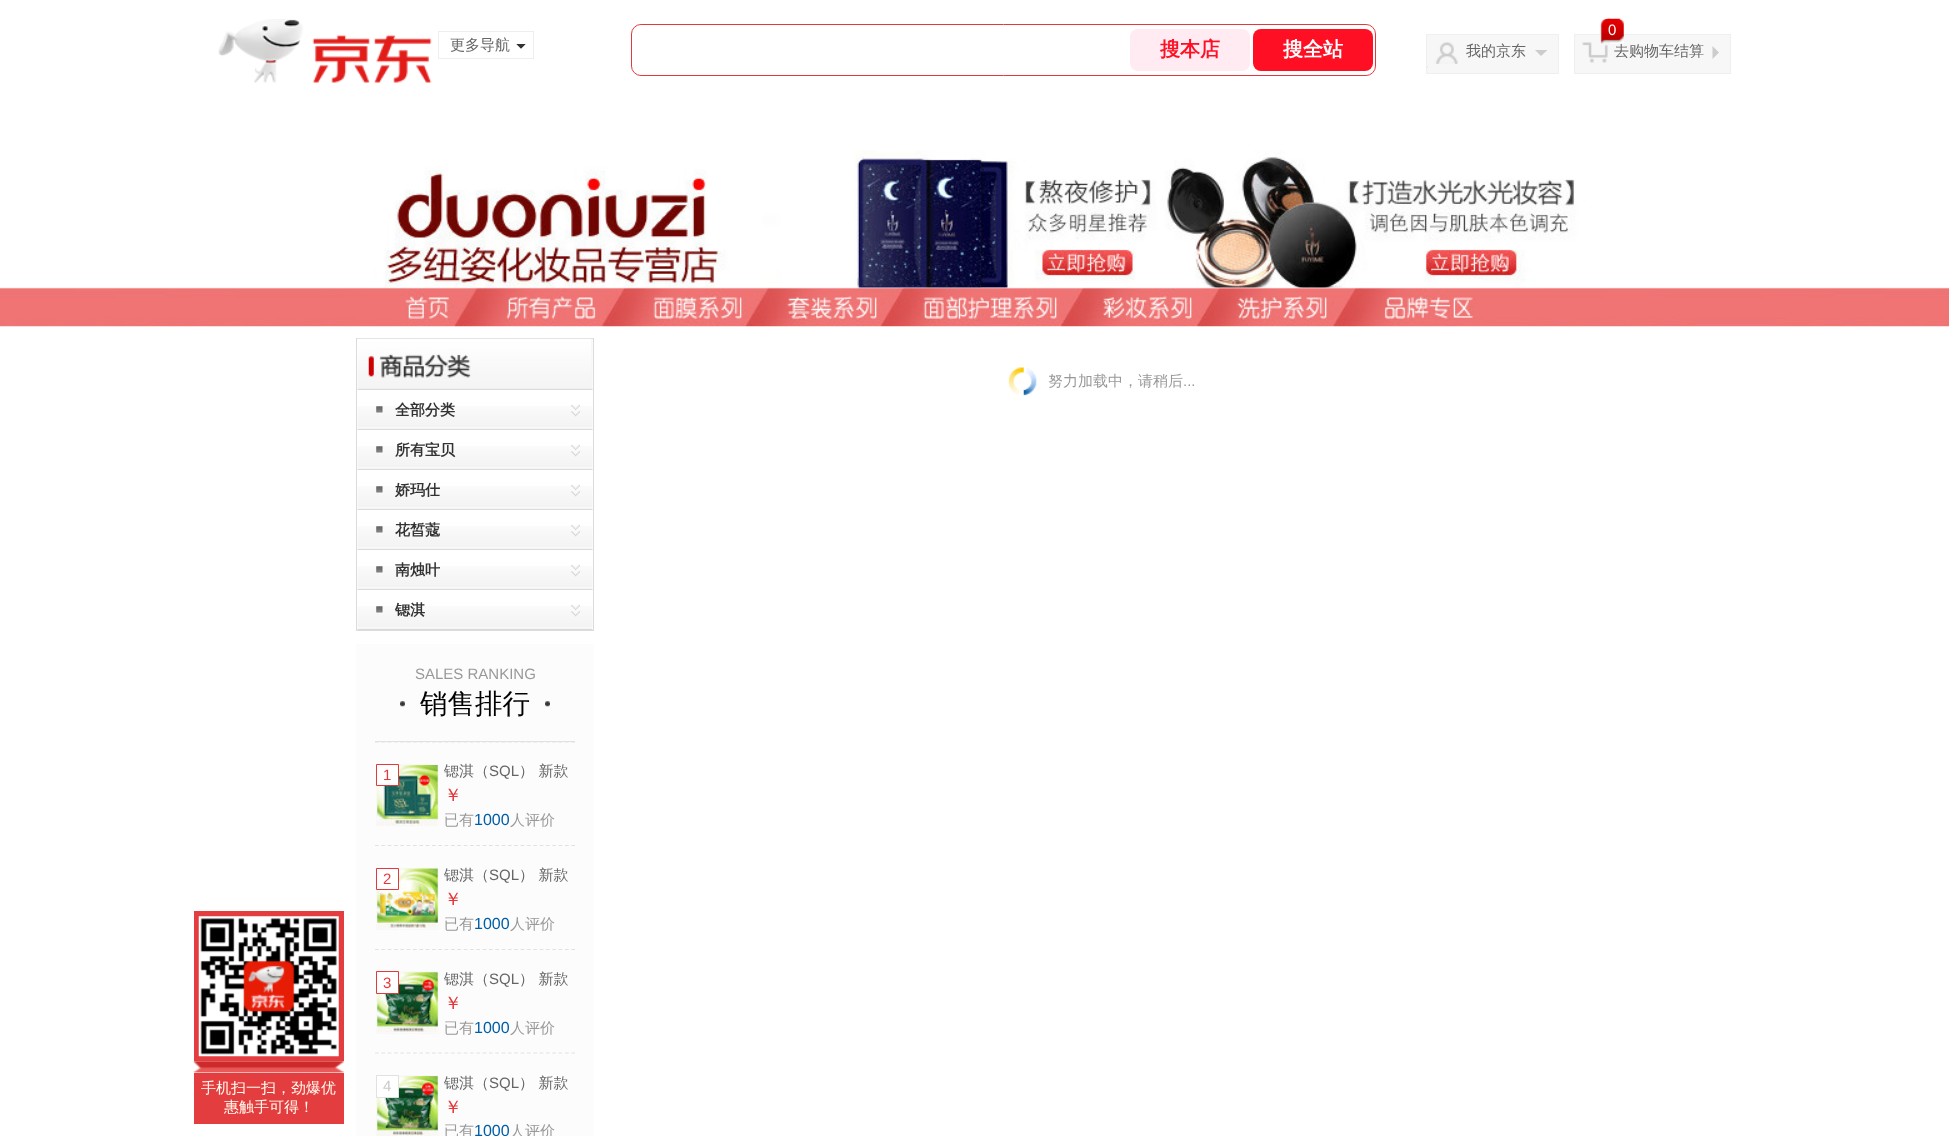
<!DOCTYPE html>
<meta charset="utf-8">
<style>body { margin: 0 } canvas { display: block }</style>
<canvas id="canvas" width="1949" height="1136"></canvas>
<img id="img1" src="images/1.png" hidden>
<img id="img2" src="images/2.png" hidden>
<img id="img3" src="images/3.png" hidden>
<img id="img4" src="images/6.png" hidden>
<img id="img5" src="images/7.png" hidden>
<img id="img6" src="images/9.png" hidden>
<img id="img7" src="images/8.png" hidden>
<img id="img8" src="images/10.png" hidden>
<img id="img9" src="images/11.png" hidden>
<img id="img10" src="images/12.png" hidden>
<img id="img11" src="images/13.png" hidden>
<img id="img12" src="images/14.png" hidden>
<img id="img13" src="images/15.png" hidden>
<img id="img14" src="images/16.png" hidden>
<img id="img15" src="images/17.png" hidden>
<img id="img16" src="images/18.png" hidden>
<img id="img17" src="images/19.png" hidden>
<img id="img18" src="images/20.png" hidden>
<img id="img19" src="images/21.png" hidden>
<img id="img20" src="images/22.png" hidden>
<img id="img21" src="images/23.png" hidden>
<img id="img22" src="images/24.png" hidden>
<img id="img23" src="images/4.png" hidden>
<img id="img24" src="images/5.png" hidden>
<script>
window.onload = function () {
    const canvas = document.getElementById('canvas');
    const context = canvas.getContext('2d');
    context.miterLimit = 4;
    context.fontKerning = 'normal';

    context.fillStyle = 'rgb(255, 255, 255)';
    context.fillRect(0, 0, 1949, 1136);
    context.drawImage(document.getElementById('img1'), 218, 19, 214, 64);
    context.strokeStyle = 'rgb(238, 238, 238)';
    context.strokeRect(438.5, 31.5, 95, 27);
    context.fillStyle = 'rgb(51, 51, 51)';
    context.beginPath();
    context.moveTo(516, 44);
    context.lineTo(526, 44);
    context.lineTo(521, 49);
    context.closePath();
    context.fill();
    context.fillStyle = 'rgb(255, 255, 255)';
    context.beginPath();
    context.moveTo(526, 44);
    context.lineTo(526, 54);
    context.lineTo(521, 49);
    context.closePath();
    context.moveTo(516, 54);
    context.lineTo(516, 44);
    context.lineTo(521, 49);
    context.closePath();
    context.fill();
    context.beginPath();
    context.roundRect(631.5, 24.5, 744, 51, 9.5);
    context.strokeStyle = 'rgb(228, 57, 60)';
    context.stroke();
    context.beginPath();
    context.roundRect(633, 25, 500, 50, [10, 0, 0, 10]);
    context.fill();
    context.fillStyle = 'rgb(255, 235, 241)';
    context.beginPath();
    context.roundRect(1130, 29, 120, 42, 8);
    context.fill();
    context.fillStyle = 'rgb(255, 15, 35)';
    context.beginPath();
    context.roundRect(1253, 29, 120, 42, 8);
    context.fill();
    context.fillStyle = 'rgb(247, 247, 247)';
    context.fillRect(1427, 35, 131, 38);
    context.drawImage(document.getElementById('img2'), 1427, 42, 31, 26);
    context.strokeStyle = 'rgb(239, 239, 239)';
    context.strokeRect(1426.5, 34.5, 132, 39);
    context.fillStyle = 'rgb(204, 204, 204)';
    context.beginPath();
    context.moveTo(1535, 50);
    context.lineTo(1547.5, 50);
    context.lineTo(1541, 56);
    context.closePath();
    context.fill();
    context.fillStyle = 'rgb(247, 247, 247)';
    context.fillRect(1575, 35, 155, 38);
    context.drawImage(document.getElementById('img3'), 1582, 42, 26, 21);
    context.strokeRect(1574.5, 34.5, 156, 39);
    context.fillStyle = 'rgb(204, 204, 204)';
    context.beginPath();
    context.moveTo(1712.5, 59);
    context.lineTo(1712.5, 46);
    context.lineTo(1719, 52.5);
    context.closePath();
    context.fill();
    context.fillStyle = 'rgb(228, 61, 63)';
    context.fillRect(194, 911, 150, 150);
    context.drawImage(document.getElementById('img4'), 198, 916, 141, 141);
    context.drawImage(document.getElementById('img5'), 193, 1061, 151, 12);
    context.fillRect(194, 1073, 150, 51);
    context.drawImage(document.getElementById('img6'), 0, 287, 1949, 40);
    context.drawImage(document.getElementById('img7'), 0, 150, 1949, 138);
    context.drawImage(document.getElementById('img8'), 1008, 367, 29, 29);
    context.strokeStyle = 'rgb(219, 219, 219)';
    context.strokeRect(356.5, 338.5, 237, 292);
    context.drawImage(document.getElementById('img9'), 357, 338, 236, 52);
    context.drawImage(document.getElementById('img10'), 357, 406, 236, 24);
    context.drawImage(document.getElementById('img11'), 376, 406, 7, 7);
    context.drawImage(document.getElementById('img12'), 571, 405, 9, 12);
    context.drawImage(document.getElementById('img10'), 357, 446, 236, 24);
    context.drawImage(document.getElementById('img11'), 376, 446, 7, 7);
    context.drawImage(document.getElementById('img12'), 571, 445, 9, 12);
    context.drawImage(document.getElementById('img10'), 357, 486, 236, 24);
    context.drawImage(document.getElementById('img11'), 376, 486, 7, 7);
    context.drawImage(document.getElementById('img12'), 571, 485, 9, 12);
    context.drawImage(document.getElementById('img13'), 357, 526, 236, 24);
    context.drawImage(document.getElementById('img11'), 376, 526, 7, 7);
    context.drawImage(document.getElementById('img12'), 571, 525, 9, 12);
    context.drawImage(document.getElementById('img10'), 357, 566, 236, 24);
    context.drawImage(document.getElementById('img11'), 376, 566, 7, 7);
    context.drawImage(document.getElementById('img12'), 571, 565, 9, 12);
    context.drawImage(document.getElementById('img13'), 357, 606, 236, 24);
    context.drawImage(document.getElementById('img11'), 376, 606, 7, 7);
    context.drawImage(document.getElementById('img12'), 571, 605, 9, 12);
    context.fillStyle = 'rgb(252, 252, 252)';
    context.fillRect(356, 644, 238, 492);
    context.fillStyle = 'rgb(225, 225, 225)';
    context.fillRect(375, 741, 200, 1);
    context.drawImage(document.getElementById('img14'), 400, 701, 5, 6);
    context.drawImage(document.getElementById('img14'), 545, 701, 5, 6);
    context.beginPath();
    context.moveTo(375, 742);
    context.lineTo(575, 742);
    context.strokeStyle = 'rgb(225, 225, 225)';
    context.lineWidth = 1.2;
    context.setLineDash([3.75, 2.58]);
    context.stroke();
    context.strokeStyle = 'rgb(249, 247, 247)';
    context.lineWidth = 1;
    context.setLineDash([]);
    context.strokeRect(376.5, 764.5, 62, 61);
    context.drawImage(document.getElementById('img15'), 377, 765, 61, 60);
    context.drawImage(document.getElementById('img16'), 377, 765, 61, 55);
    context.fillStyle = 'rgb(255, 255, 255)';
    context.beginPath();
    context.rect(376.5, 764.5, 22, 21);
    context.fill();
    context.strokeStyle = 'rgb(228, 57, 60)';
    context.stroke();
    context.beginPath();
    context.moveTo(375, 845.5);
    context.lineTo(575, 845.5);
    context.strokeStyle = 'rgb(225, 225, 225)';
    context.lineWidth = 1.2;
    context.setLineDash([3.75, 2.58]);
    context.stroke();
    context.strokeStyle = 'rgb(249, 247, 247)';
    context.lineWidth = 1;
    context.setLineDash([]);
    context.strokeRect(376.5, 868.5, 62, 61);
    context.drawImage(document.getElementById('img17'), 377, 868, 61, 61);
    context.drawImage(document.getElementById('img18'), 377, 868, 61, 55);
    context.beginPath();
    context.rect(376.5, 868.5, 22, 21);
    context.fill();
    context.strokeStyle = 'rgb(228, 57, 60)';
    context.stroke();
    context.beginPath();
    context.moveTo(375, 949.5);
    context.lineTo(575, 949.5);
    context.strokeStyle = 'rgb(225, 225, 225)';
    context.lineWidth = 1.2;
    context.setLineDash([3.75, 2.58]);
    context.stroke();
    context.strokeStyle = 'rgb(249, 247, 247)';
    context.lineWidth = 1;
    context.setLineDash([]);
    context.strokeRect(376.5, 971.5, 62, 62);
    context.drawImage(document.getElementById('img19'), 377, 972, 61, 61);
    context.drawImage(document.getElementById('img20'), 377, 972, 61, 55);
    context.beginPath();
    context.rect(376.5, 971.5, 22, 22);
    context.fill();
    context.strokeStyle = 'rgb(228, 57, 60)';
    context.stroke();
    context.beginPath();
    context.moveTo(375, 1053);
    context.lineTo(575, 1053);
    context.strokeStyle = 'rgb(225, 225, 225)';
    context.lineWidth = 1.2;
    context.setLineDash([3.75, 2.58]);
    context.stroke();
    context.strokeStyle = 'rgb(249, 247, 247)';
    context.lineWidth = 1;
    context.setLineDash([]);
    context.strokeRect(376.5, 1075.5, 62, 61);
    context.drawImage(document.getElementById('img21'), 377, 1076, 61, 60);
    context.drawImage(document.getElementById('img22'), 377, 1076, 61, 55);
    context.beginPath();
    context.rect(376.5, 1075.5, 22, 22);
    context.fill();
    context.strokeStyle = 'rgb(225, 225, 225)';
    context.stroke();
    context.font = '500 15px WenQuanYi Zen Hei';
    context.fillStyle = 'rgb(102, 102, 102)';
    context.fillText('更多导航', 450, 50);
    context.font = 'bold 20px WenQuanYi Zen Hei';
    context.fillStyle = 'rgb(255, 15, 35)';
    context.fillText('搜本店', 1160, 56);
    context.fillStyle = 'rgb(255, 255, 255)';
    context.fillText('搜全站', 1283, 56);
    context.font = '500 15px WenQuanYi Zen Hei';
    context.fillStyle = 'rgb(102, 102, 102)';
    context.fillText('我的京东', 1466, 56);
    context.fillText('去购物车结算', 1614, 56);
    context.drawImage(document.getElementById('img23'), 1600, 18, 24, 26);
    context.drawImage(document.getElementById('img24'), 1607, 18, 17, 25);
    context.font = '15px Liberation Sans';
    context.fillStyle = 'rgb(255, 255, 255)';
    context.fillText('0', 1608, 35);
    context.font = '500 15px WenQuanYi Zen Hei';
    context.fillStyle = 'rgb(255, 251, 238)';
    context.fillText('手机扫一扫，劲爆优', 201, 1093);
    context.fillText('惠触手可得！', 224, 1112);
    context.fillStyle = 'rgb(153, 153, 153)';
    context.fillText('努力加载中，请稍后', 1048, 386);
    context.font = '15px Liberation Sans';
    context.fillText('...', 1183, 386);
    context.font = 'bold 15px WenQuanYi Zen Hei';
    context.fillStyle = 'rgb(51, 51, 51)';
    context.fillText('全部分类', 395, 415);
    context.fillText('所有宝贝', 395, 455);
    context.fillText('娇玛仕', 395, 495);
    context.fillText('花皙蔻', 395, 535);
    context.fillText('南烛叶', 395, 575);
    context.fillText('锶淇', 395, 615);
    context.font = '15px Liberation Sans';
    context.fillStyle = 'rgb(153, 153, 153)';
    context.fillText('SALES RANKING', 415, 679);
    context.font = '500 27.5px WenQuanYi Zen Hei';
    context.fillStyle = 'rgb(0, 0, 0)';
    context.fillText('销售排行', 420, 713);
    context.font = '15px Liberation Sans';
    context.fillStyle = 'rgb(228, 57, 60)';
    context.fillText('1', 383, 780);
    context.font = '500 15px WenQuanYi Zen Hei';
    context.fillStyle = 'rgb(102, 102, 102)';
    context.fillText('锶淇（', 444, 776);
    context.font = '15px Liberation Sans';
    context.fillText('SQL', 489, 776);
    context.font = '500 15px WenQuanYi Zen Hei';
    context.fillText('） 新款', 519, 776);
    context.font = '500 18px WenQuanYi Zen Hei';
    context.fillStyle = 'rgb(228, 57, 60)';
    context.fillText('￥', 444, 801);
    context.font = '500 15px WenQuanYi Zen Hei';
    context.fillStyle = 'rgb(153, 153, 153)';
    context.fillText('已有', 444, 825);
    context.font = '16px Liberation Sans';
    context.fillStyle = 'rgb(0, 94, 167)';
    context.fillText('1000', 474, 825);
    context.font = '500 15px WenQuanYi Zen Hei';
    context.fillStyle = 'rgb(153, 153, 153)';
    context.fillText('人评价', 510, 825);
    context.font = '15px Liberation Sans';
    context.fillStyle = 'rgb(228, 57, 60)';
    context.fillText('2', 383, 884);
    context.font = '500 15px WenQuanYi Zen Hei';
    context.fillStyle = 'rgb(102, 102, 102)';
    context.fillText('锶淇（', 444, 880);
    context.font = '15px Liberation Sans';
    context.fillText('SQL', 489, 880);
    context.font = '500 15px WenQuanYi Zen Hei';
    context.fillText('） 新款', 519, 880);
    context.font = '500 18px WenQuanYi Zen Hei';
    context.fillStyle = 'rgb(228, 57, 60)';
    context.fillText('￥', 444, 905);
    context.font = '500 15px WenQuanYi Zen Hei';
    context.fillStyle = 'rgb(153, 153, 153)';
    context.fillText('已有', 444, 929);
    context.font = '16px Liberation Sans';
    context.fillStyle = 'rgb(0, 94, 167)';
    context.fillText('1000', 474, 929);
    context.font = '500 15px WenQuanYi Zen Hei';
    context.fillStyle = 'rgb(153, 153, 153)';
    context.fillText('人评价', 510, 929);
    context.font = '15px Liberation Sans';
    context.fillStyle = 'rgb(228, 57, 60)';
    context.fillText('3', 383, 988);
    context.font = '500 15px WenQuanYi Zen Hei';
    context.fillStyle = 'rgb(102, 102, 102)';
    context.fillText('锶淇（', 444, 984);
    context.font = '15px Liberation Sans';
    context.fillText('SQL', 489, 984);
    context.font = '500 15px WenQuanYi Zen Hei';
    context.fillText('） 新款', 519, 984);
    context.font = '500 18px WenQuanYi Zen Hei';
    context.fillStyle = 'rgb(228, 57, 60)';
    context.fillText('￥', 444, 1009);
    context.font = '500 15px WenQuanYi Zen Hei';
    context.fillStyle = 'rgb(153, 153, 153)';
    context.fillText('已有', 444, 1033);
    context.font = '16px Liberation Sans';
    context.fillStyle = 'rgb(0, 94, 167)';
    context.fillText('1000', 474, 1033);
    context.font = '500 15px WenQuanYi Zen Hei';
    context.fillStyle = 'rgb(153, 153, 153)';
    context.fillText('人评价', 510, 1033);
    context.font = '15px Liberation Sans';
    context.fillStyle = 'rgb(201, 201, 201)';
    context.fillText('4', 383, 1091);
    context.font = '500 15px WenQuanYi Zen Hei';
    context.fillStyle = 'rgb(102, 102, 102)';
    context.fillText('锶淇（', 444, 1088);
    context.font = '15px Liberation Sans';
    context.fillText('SQL', 489, 1088);
    context.font = '500 15px WenQuanYi Zen Hei';
    context.fillText('） 新款', 519, 1088);
    context.font = '500 18px WenQuanYi Zen Hei';
    context.fillStyle = 'rgb(228, 57, 60)';
    context.fillText('￥', 444, 1113);
    context.font = '500 15px WenQuanYi Zen Hei';
    context.fillStyle = 'rgb(153, 153, 153)';
    context.fillText('已有', 444, 1136);
    context.font = '16px Liberation Sans';
    context.fillStyle = 'rgb(0, 94, 167)';
    context.fillText('1000', 474, 1136);
    context.font = '500 15px WenQuanYi Zen Hei';
    context.fillStyle = 'rgb(153, 153, 153)';
    context.fillText('人评价', 510, 1136);
};
</script>
